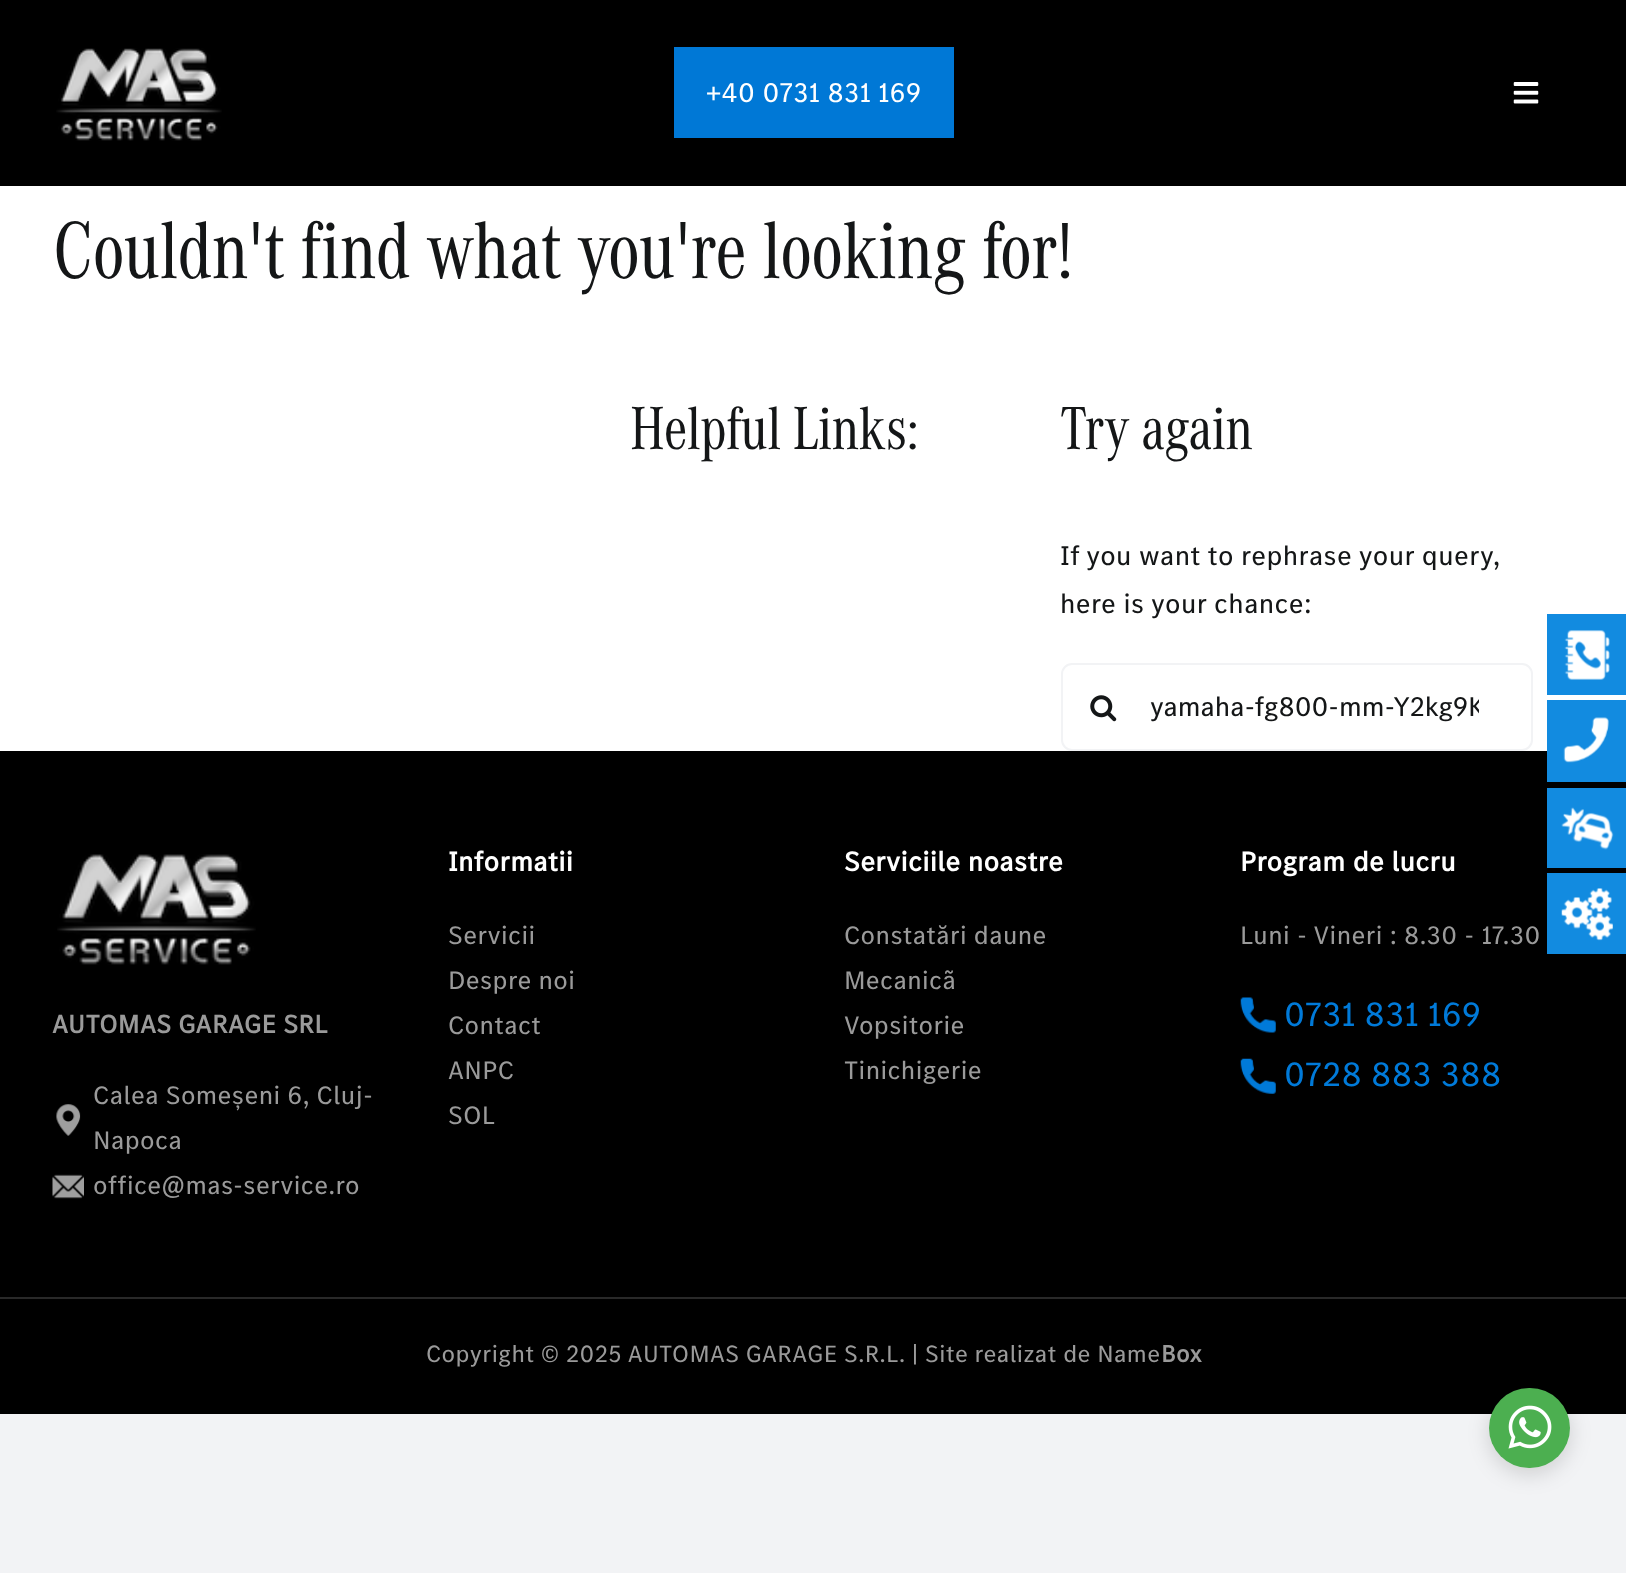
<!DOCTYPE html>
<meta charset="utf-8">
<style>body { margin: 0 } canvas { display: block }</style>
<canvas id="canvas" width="1626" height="1573"></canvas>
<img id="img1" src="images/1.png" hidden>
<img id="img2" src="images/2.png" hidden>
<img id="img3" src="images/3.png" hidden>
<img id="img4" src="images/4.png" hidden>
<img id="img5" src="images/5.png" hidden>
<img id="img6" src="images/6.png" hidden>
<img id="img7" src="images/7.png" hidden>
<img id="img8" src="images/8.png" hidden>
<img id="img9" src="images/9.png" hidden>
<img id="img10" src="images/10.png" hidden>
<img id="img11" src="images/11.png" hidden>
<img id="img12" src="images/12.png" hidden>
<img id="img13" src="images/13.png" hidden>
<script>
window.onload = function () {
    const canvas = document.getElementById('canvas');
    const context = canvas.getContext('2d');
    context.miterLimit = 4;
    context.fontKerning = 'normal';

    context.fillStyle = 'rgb(242, 243, 245)';
    context.fillRect(0, 0, 1626, 1573);
    context.fillStyle = 'rgb(255, 255, 255)';
    context.fillRect(0, 186, 1626, 565);
    context.fillStyle = 'rgb(0, 0, 0)';
    context.fillRect(0, 0, 1626, 186);
    context.drawImage(document.getElementById('img1'), 56, 48, 166, 93);
    context.fillStyle = 'rgb(0, 120, 214)';
    context.fillRect(674, 47, 280, 91);
    context.drawImage(document.getElementById('img2'), 1513, 82, 26, 22);
    context.beginPath();
    context.roundRect(1062, 664, 470, 86, 10);
    context.strokeStyle = 'rgb(242, 243, 245)';
    context.lineWidth = 2;
    context.stroke();
    context.drawImage(document.getElementById('img3'), 1090, 695, 27, 27);
    context.fillStyle = 'rgb(18, 139, 224)';
    context.fillRect(1547, 614, 79, 81);
    context.drawImage(document.getElementById('img4'), 1564, 630, 46, 50);
    context.fillStyle = 'rgb(0, 0, 0)';
    context.fillRect(0, 751, 1626, 546);
    context.fillStyle = 'rgb(18, 139, 224)';
    context.fillRect(1547, 700, 79, 82);
    context.drawImage(document.getElementById('img5'), 1563, 717, 46, 46);
    context.fillRect(1547, 788, 79, 80);
    context.drawImage(document.getElementById('img6'), 1561, 807, 53, 43);
    context.fillRect(1547, 873, 79, 81);
    context.drawImage(document.getElementById('img7'), 1561, 888, 52, 53);
    context.drawImage(document.getElementById('img8'), 1240, 997, 36, 36);
    context.drawImage(document.getElementById('img9'), 1240, 1058, 36, 36);
    context.drawImage(document.getElementById('img10'), 57, 854, 199, 111);
    context.drawImage(document.getElementById('img11'), 56, 1104, 25, 32);
    context.drawImage(document.getElementById('img12'), 52, 1174, 32, 25);
    context.fillStyle = 'rgb(0, 0, 0)';
    context.fillRect(0, 1299, 1626, 115);
    context.fillStyle = 'rgb(41, 41, 41)';
    context.fillRect(0, 1297, 1626, 2);
    context.fillStyle = 'rgba(0, 0, 0, 0.15)';
    context.filter = 'blur(10.5px)';
    context.beginPath();
    context.roundRect(1489, 1393, 81, 81, 40.5);
    context.fill();
    context.filter = 'none';
    context.fillStyle = 'rgb(76, 175, 80)';
    context.beginPath();
    context.roundRect(1489, 1388, 81, 80, 40);
    context.fill();
    context.drawImage(document.getElementById('img13'), 1508, 1405, 44, 44);
    context.letterSpacing = '0.42px';
    context.font = '28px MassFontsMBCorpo';
    context.fillStyle = 'rgb(255, 255, 255)';
    context.fillText('+40 0731 831 169', 706, 102);
    context.letterSpacing = '-1.25px';
    context.font = '84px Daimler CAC';
    context.fillStyle = 'rgb(20, 22, 23)';
    context.fillText('Couldn\'t find what you\'re looking for!', 53, 278);
    context.letterSpacing = '-1px';
    context.font = '63px Daimler CAC';
    context.fillText('Helpful Links:', 630, 449);
    context.fillText('Try again', 1060, 449);
    context.letterSpacing = '0.42px';
    context.font = '28px MassFontsMBCorpo';
    context.fillText('If you want to rephrase your query,', 1060, 565);
    context.fillText('here is your chance:', 1060, 613);
    context.save();
    context.beginPath();
    context.rect(1150, 688, 329, 37);
    context.clip();
    context.letterSpacing = '0px';
    context.fillText('yamaha-fg800-mm-Y2kg9K', 1150, 716);
    context.restore();
    context.font = 'bold 28px MassFontsMBCorpo';
    context.fillStyle = 'rgb(255, 255, 255)';
    context.fillText('Informatii', 448, 871);
    context.letterSpacing = '0.4px';
    context.font = '26.25px MassFontsMBCorpo';
    context.fillStyle = 'rgb(154, 154, 154)';
    context.fillText('Servicii', 448, 944);
    context.fillText('Despre noi', 448, 989);
    context.fillText('Contact', 448, 1034);
    context.fillText('ANPC', 448, 1079);
    context.fillText('SOL', 448, 1124);
    context.letterSpacing = '0.42px';
    context.font = 'bold 28px MassFontsMBCorpo';
    context.fillStyle = 'rgb(255, 255, 255)';
    context.fillText('Serviciile noastre', 844, 871);
    context.letterSpacing = '0.4px';
    context.font = '26.25px MassFontsMBCorpo';
    context.fillStyle = 'rgb(154, 154, 154)';
    context.fillText('Constatări daune', 844, 944);
    context.fillText('Mecanicã', 844, 989);
    context.fillText('Vopsitorie', 844, 1034);
    context.fillText('Tinichigerie', 844, 1079);
    context.letterSpacing = '0.42px';
    context.font = 'bold 28px MassFontsMBCorpo';
    context.fillStyle = 'rgb(255, 255, 255)';
    context.fillText('Program de lucru', 1240, 871);
    context.font = '26.25px MassFontsMBCorpo';
    context.fillStyle = 'rgb(154, 154, 154)';
    context.fillText('Luni - Vineri : 8.30 - 17.30', 1240, 944);
    context.font = '35px MassFontsMBCorpo';
    context.fillStyle = 'rgb(0, 122, 217)';
    context.fillText('0731 831 169', 1284, 1026);
    context.fillText('0728 883 388', 1284, 1086);
    context.font = 'bold 26.25px MassFontsMBCorpo';
    context.fillStyle = 'rgb(154, 154, 154)';
    context.fillText('AUTOMAS GARAGE SRL', 52, 1033);
    context.font = '26.25px MassFontsMBCorpo';
    context.fillText('Calea Someșeni 6, Cluj-', 93, 1104);
    context.fillText('Napoca', 93, 1149);
    context.fillText('office@mas-service.ro', 93, 1194);
    context.font = '24.5px MassFontsMBCorpo';
    context.fillText('Copyright © 2025 AUTOMAS GARAGE S.R.L. | Site realizat de Name', 426, 1362);
    context.font = 'bold 24.5px MassFontsMBCorpo';
    context.fillText('Box', 1161, 1362);
};
</script>
